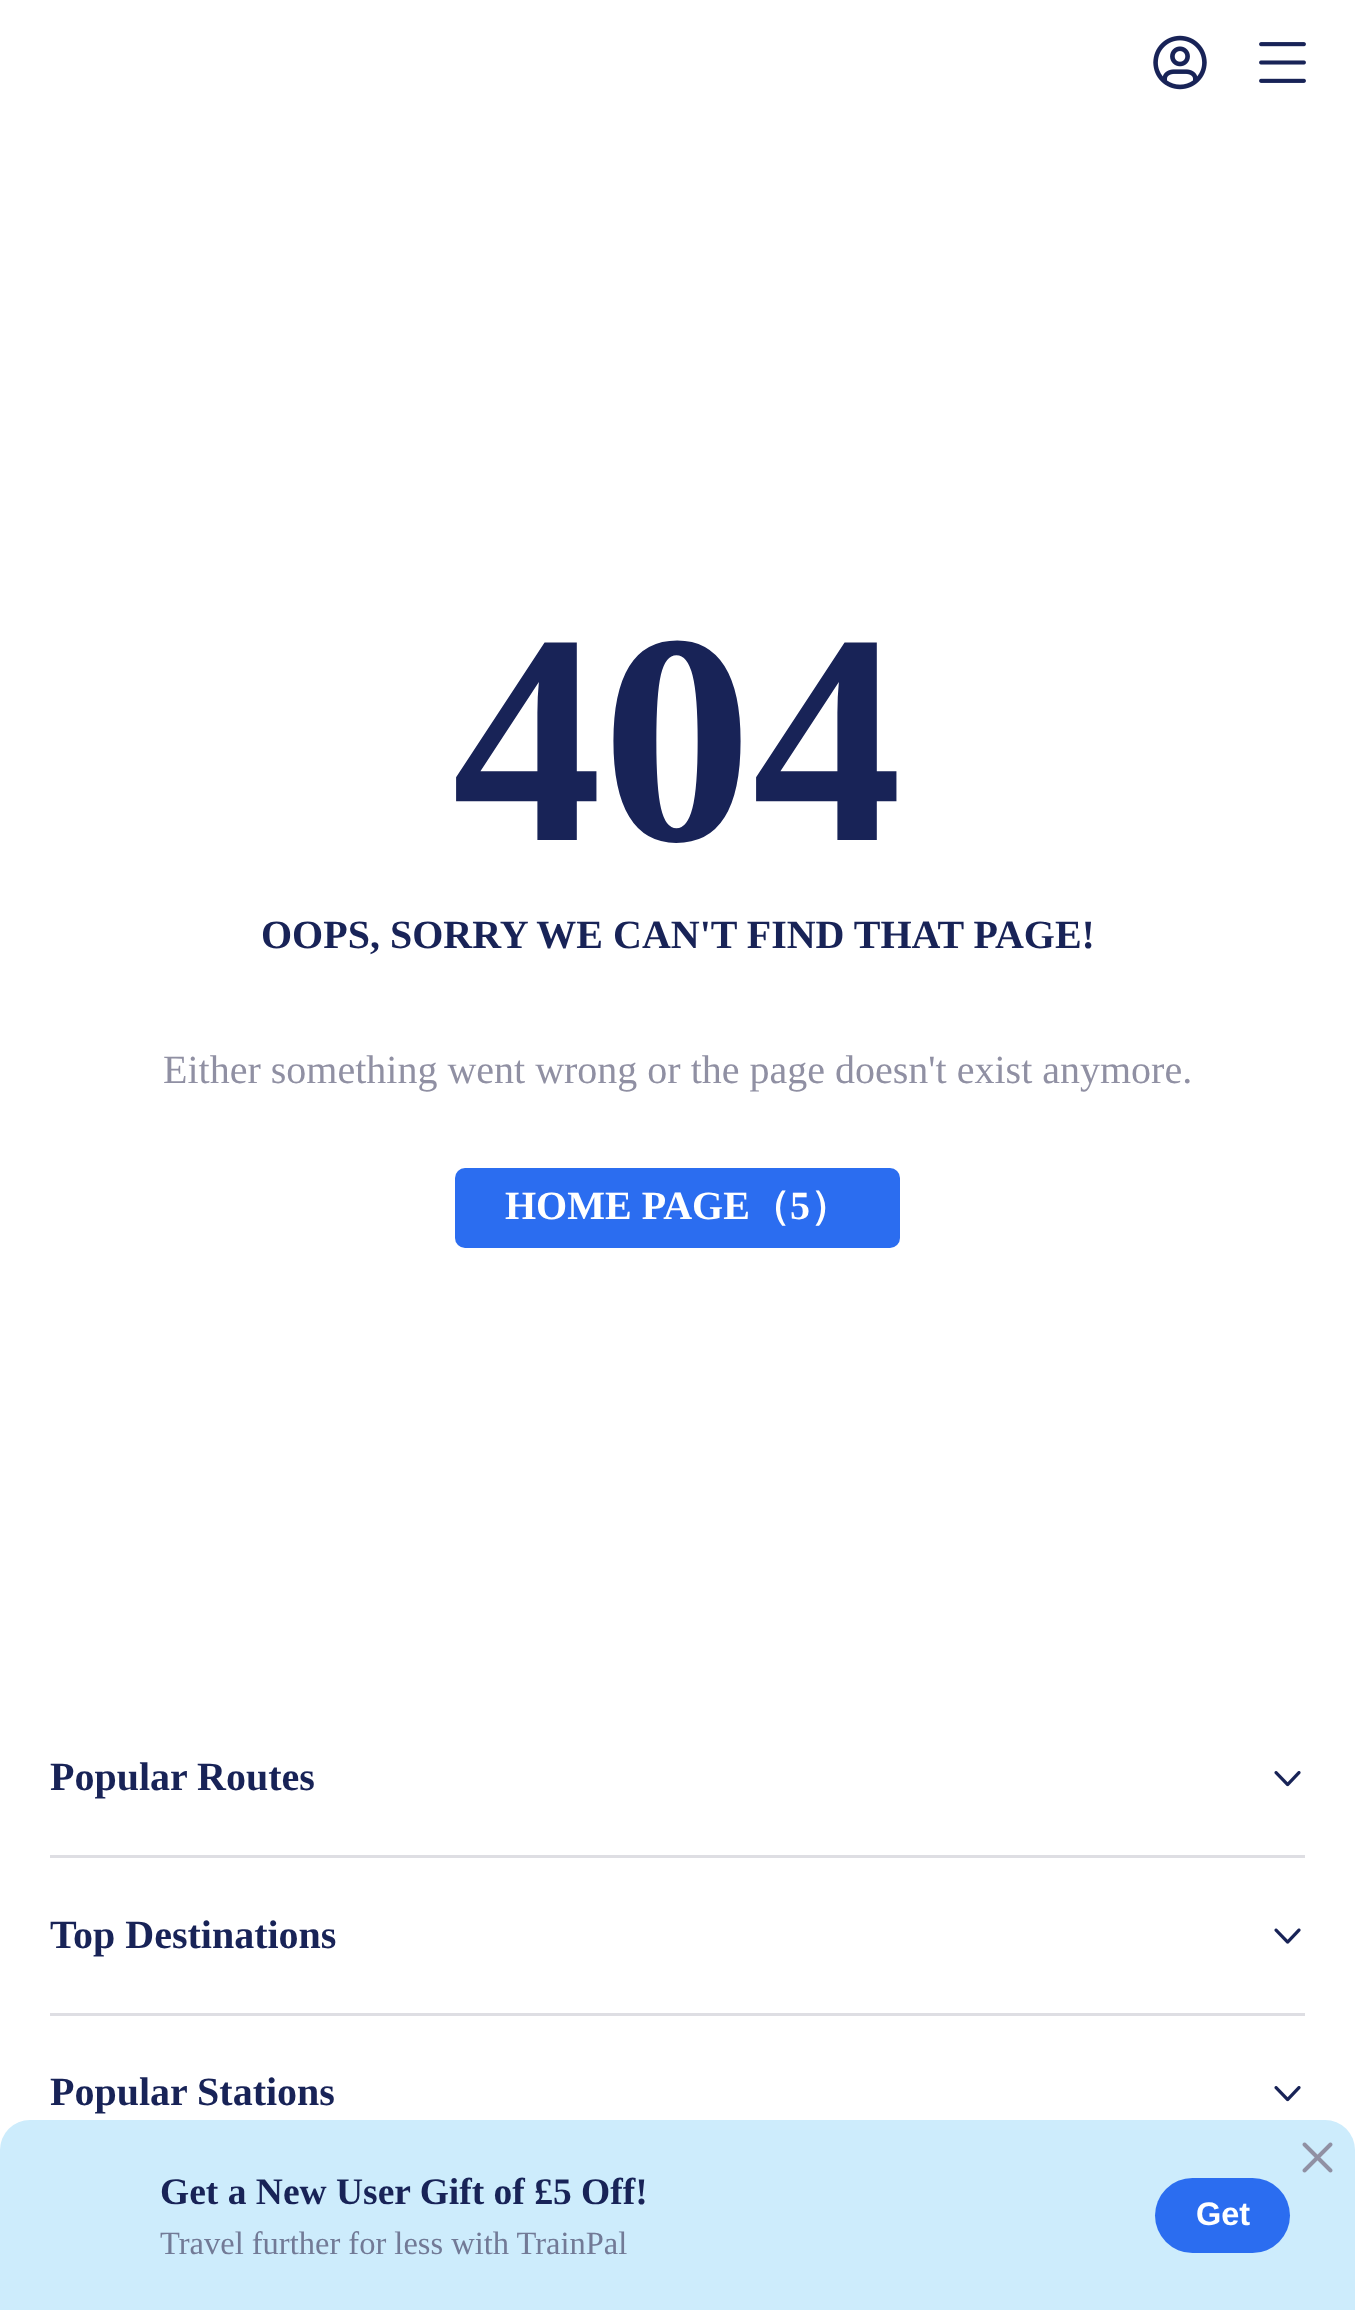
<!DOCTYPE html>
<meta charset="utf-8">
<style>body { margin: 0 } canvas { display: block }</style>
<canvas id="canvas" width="1355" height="2310"></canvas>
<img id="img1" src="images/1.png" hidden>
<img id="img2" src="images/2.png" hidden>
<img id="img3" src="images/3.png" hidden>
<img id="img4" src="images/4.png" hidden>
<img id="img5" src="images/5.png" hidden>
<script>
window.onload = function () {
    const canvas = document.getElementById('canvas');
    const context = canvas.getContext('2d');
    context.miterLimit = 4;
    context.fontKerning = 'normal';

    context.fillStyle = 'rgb(255, 255, 255)';
    context.fillRect(0, 0, 1355, 2310);
    context.drawImage(document.getElementById('img1'), 1153, 35, 54, 55);
    context.drawImage(document.getElementById('img2'), 1259, 42, 47, 41);
    context.fillStyle = 'rgb(43, 109, 240)';
    context.beginPath();
    context.roundRect(455, 1168, 445, 80, 10);
    context.fill();
    context.fillStyle = 'rgb(222, 222, 227)';
    context.fillRect(50, 1855, 1255, 3);
    context.drawImage(document.getElementById('img3'), 1274, 1771, 27, 16);
    context.fillRect(50, 2013, 1255, 3);
    context.drawImage(document.getElementById('img4'), 1274, 1928, 27, 16);
    context.drawImage(document.getElementById('img3'), 1274, 2086, 27, 16);
    context.fillStyle = 'rgb(205, 236, 252)';
    context.beginPath();
    context.roundRect(0, 2120, 1355, 190, [30, 30, 0, 0]);
    context.fill();
    context.drawImage(document.getElementById('img5'), 1302, 2142, 31, 31);
    context.fillStyle = 'rgb(43, 109, 240)';
    context.beginPath();
    context.roundRect(1155, 2178, 135, 75, 37.5);
    context.fill();
    context.font = 'bold 300px Liberation Serif';
    context.fillStyle = 'rgb(24, 35, 87)';
    context.fillText('404', 452, 840);
    context.font = 'bold 40px Liberation Serif';
    context.fillText('OOPS, SORRY WE CAN\'T FIND THAT PAGE!', 261, 948);
    context.font = '40px Liberation Serif';
    context.fillStyle = 'rgb(144, 144, 163)';
    context.fillText('Either something went wrong or the page doesn\'t exist anymore.', 163, 1083);
    context.font = 'bold 40px Liberation Serif';
    context.fillStyle = 'rgb(255, 255, 255)';
    context.fillText('HOME PAGE', 505, 1219);
    context.font = 'bold 40px WenQuanYi Zen Hei';
    context.fillText('（', 750, 1219);
    context.font = 'bold 40px Liberation Serif';
    context.fillText('5', 790, 1219);
    context.font = 'bold 40px WenQuanYi Zen Hei';
    context.fillText('）', 810, 1219);
    context.font = 'bold 40px Liberation Serif';
    context.fillStyle = 'rgb(24, 35, 87)';
    context.fillText('Popular Routes', 50, 1790);
    context.fillText('Top Destinations', 50, 1948);
    context.fillText('Popular Stations', 50, 2105);
    context.font = 'bold 37.5px Liberation Serif';
    context.fillText('Get a New User Gift of £5 Off!', 160, 2204);
    context.font = '32.5px Liberation Serif';
    context.fillStyle = 'rgb(114, 122, 150)';
    context.fillText('Travel further for less with TrainPal', 160, 2254);
    context.font = 'bold 32.5px Liberation Sans';
    context.fillStyle = 'rgb(255, 255, 255)';
    context.fillText('Get', 1196, 2225);
};
</script>
